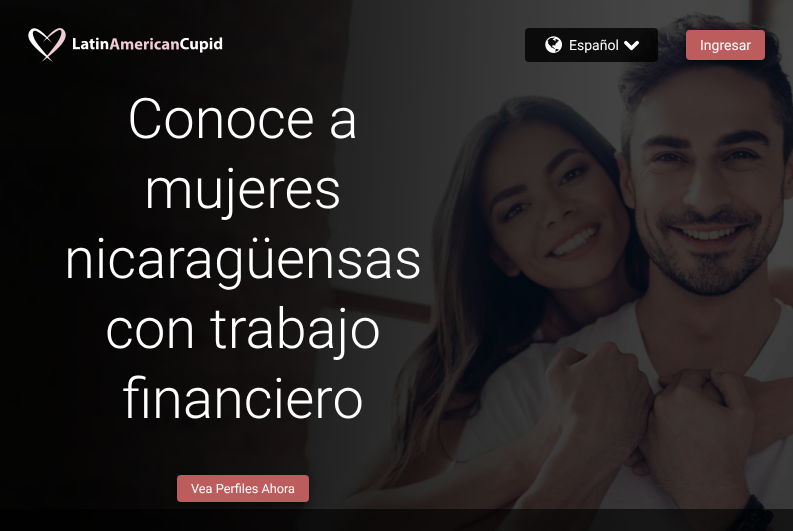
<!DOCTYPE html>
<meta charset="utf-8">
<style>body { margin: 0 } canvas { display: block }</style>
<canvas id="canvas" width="793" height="531"></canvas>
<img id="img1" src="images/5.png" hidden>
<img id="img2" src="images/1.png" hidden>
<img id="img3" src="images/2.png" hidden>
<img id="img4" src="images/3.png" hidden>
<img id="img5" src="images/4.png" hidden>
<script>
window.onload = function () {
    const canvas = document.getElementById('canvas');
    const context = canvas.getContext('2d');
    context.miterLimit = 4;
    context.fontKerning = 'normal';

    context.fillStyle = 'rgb(255, 255, 255)';
    context.fillRect(0, 0, 793, 531);
    context.drawImage(document.getElementById('img1'), 0, 0, 793, 531);
    context.drawImage(document.getElementById('img2'), 28, 28, 38, 34);
    context.drawImage(document.getElementById('img3'), 73, 37, 150, 16);
    context.fillStyle = 'rgba(0, 0, 0, 0.8)';
    context.beginPath();
    context.roundRect(525, 28, 133, 34, 4);
    context.fill();
    context.drawImage(document.getElementById('img4'), 545, 36, 17, 17);
    context.drawImage(document.getElementById('img5'), 624, 40, 15, 11);
    context.fillStyle = 'rgba(0, 0, 0, 0.4)';
    context.filter = 'blur(3px)';
    context.beginPath();
    context.roundRect(686, 33, 79, 30, 4);
    context.fill();
    context.filter = 'none';
    context.fillStyle = 'rgb(189, 92, 92)';
    context.beginPath();
    context.roundRect(686, 30, 79, 30, 4);
    context.fill();
    context.fillStyle = 'rgba(0, 0, 0, 0.6)';
    context.fillRect(0, 509, 793, 22);
    context.fillStyle = 'rgba(0, 0, 0, 0.4)';
    context.filter = 'blur(3px)';
    context.beginPath();
    context.roundRect(177, 478, 132, 27, 4);
    context.fill();
    context.filter = 'none';
    context.fillStyle = 'rgb(189, 92, 92)';
    context.beginPath();
    context.roundRect(177, 475, 132, 27, 4);
    context.fill();
    context.font = '14px Roboto';
    context.fillStyle = 'rgb(255, 255, 255)';
    context.fillText('Español', 569, 50);
    context.fillText('Ingresar', 700, 50);
    context.font = '300 56px Roboto';
    context.fillText('Conoce a', 127, 138);
    context.fillText('mujeres', 144, 208);
    context.fillText('nicaragüensas', 64, 278);
    context.fillText('con trabajo', 105, 348);
    context.fillText('financiero', 122, 418);
    context.font = '12.75px Roboto';
    context.fillText('Vea Perfiles Ahora', 191, 493);
};
</script>
